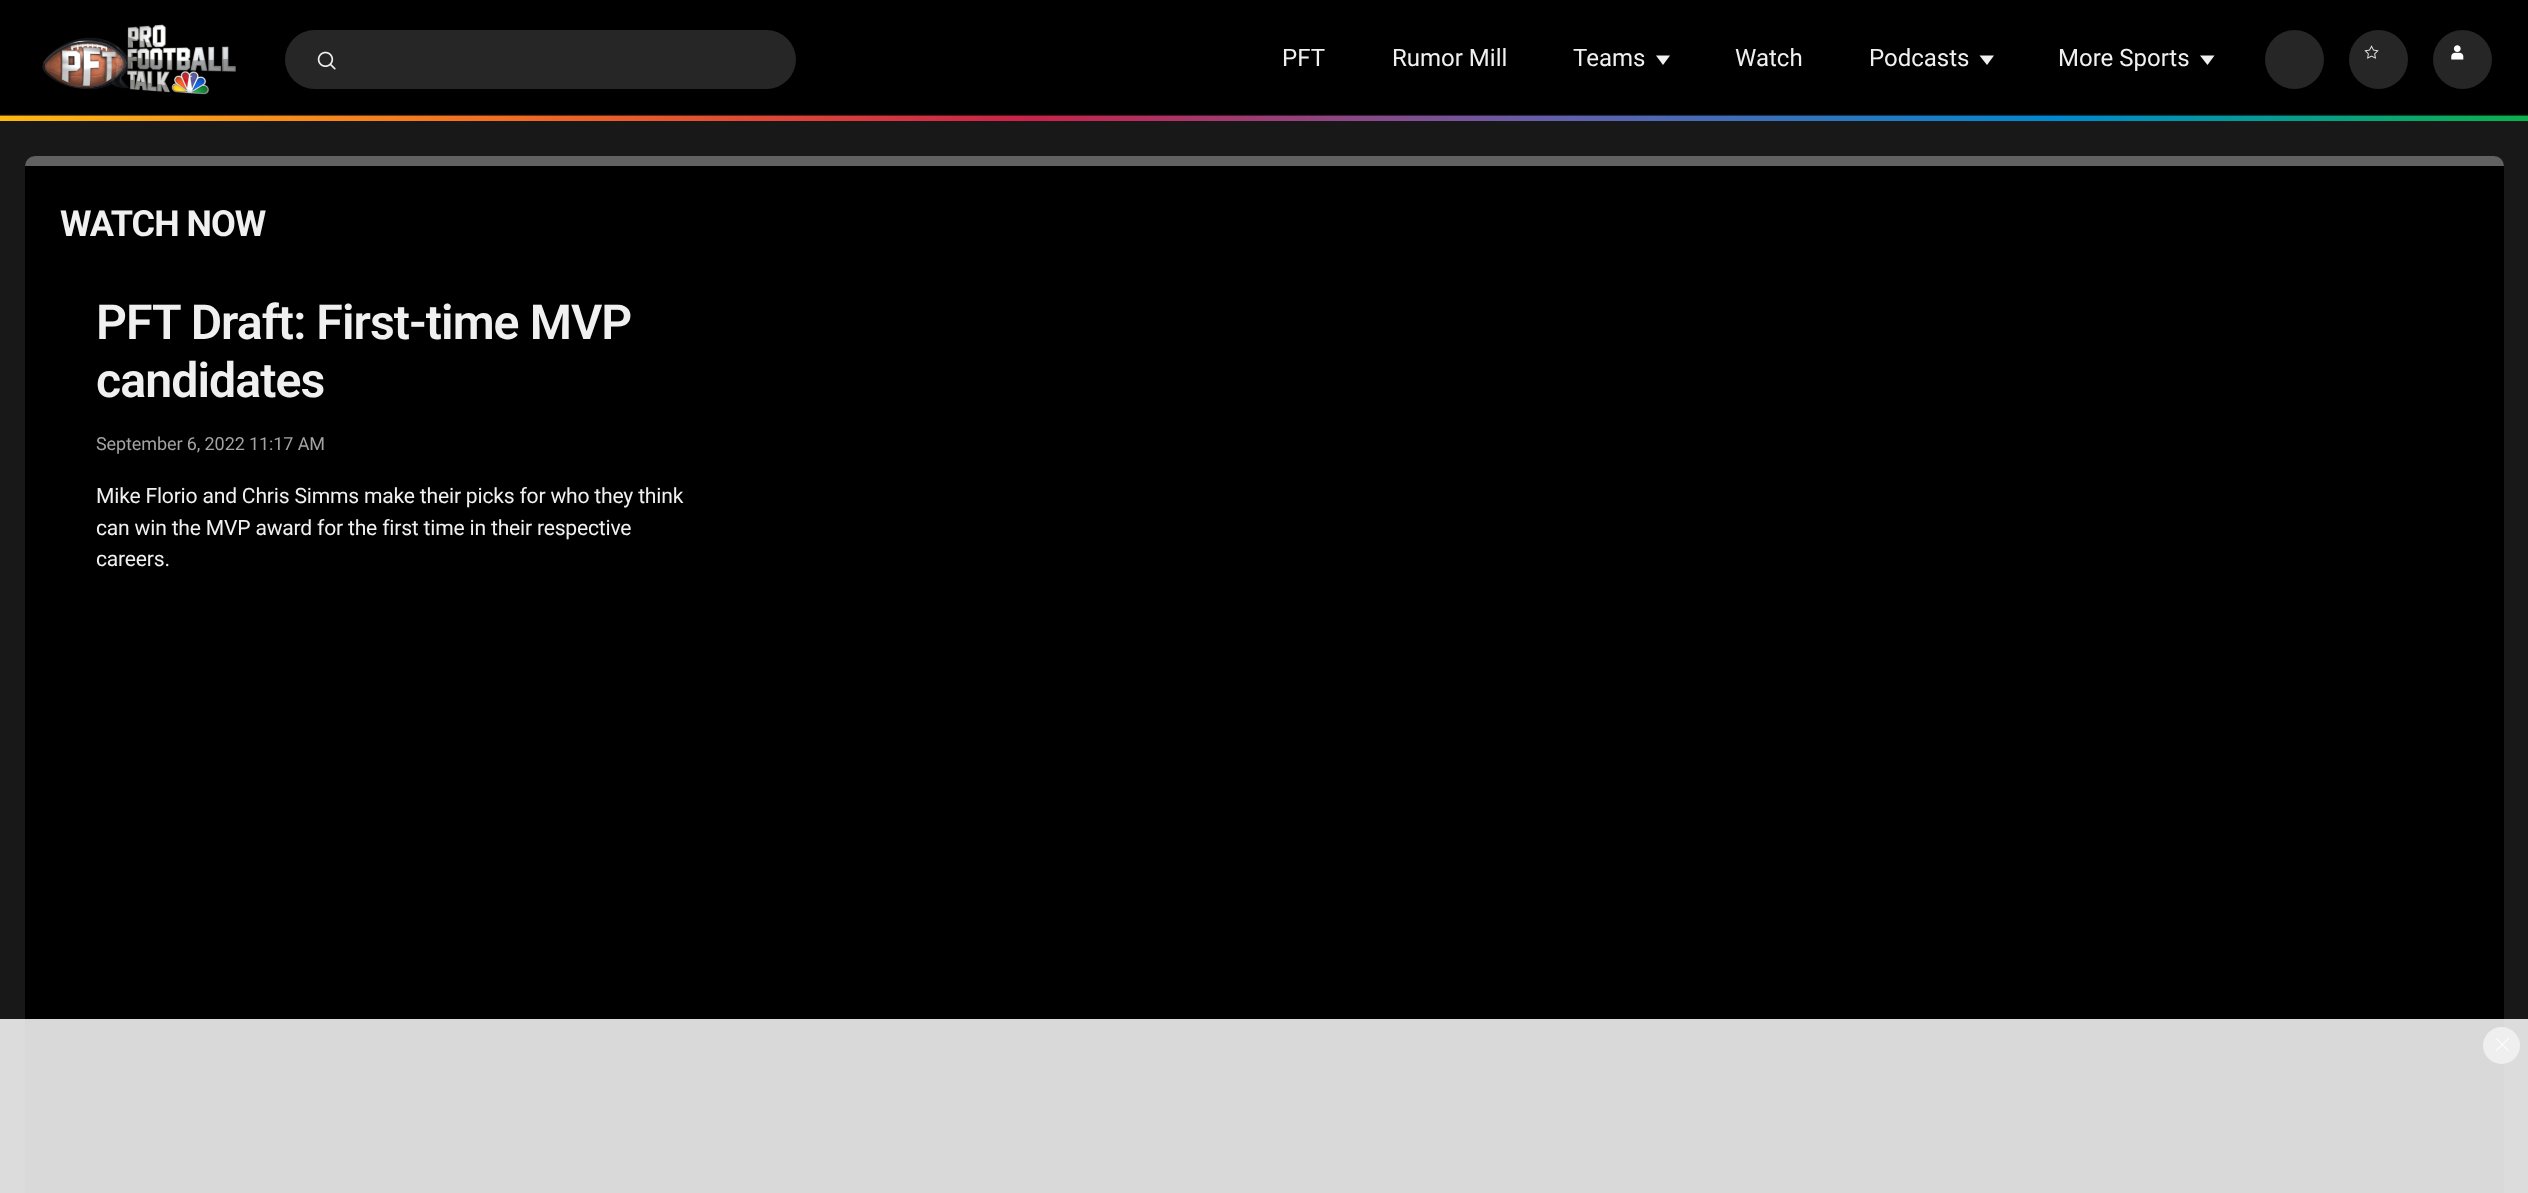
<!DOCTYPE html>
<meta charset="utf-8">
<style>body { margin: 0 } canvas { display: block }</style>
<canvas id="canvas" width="2528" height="1193"></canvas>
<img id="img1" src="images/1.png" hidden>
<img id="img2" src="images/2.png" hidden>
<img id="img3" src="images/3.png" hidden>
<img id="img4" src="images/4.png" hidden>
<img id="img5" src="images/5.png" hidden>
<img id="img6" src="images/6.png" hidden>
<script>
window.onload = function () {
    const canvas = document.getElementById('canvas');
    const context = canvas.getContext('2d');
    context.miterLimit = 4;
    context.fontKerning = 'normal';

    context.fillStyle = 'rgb(24, 24, 24)';
    context.fillRect(0, 0, 2528, 1193);
    context.fillStyle = 'rgb(220, 220, 220)';
    context.fillRect(0, 1019, 2528, 174);
    context.fillStyle = 'rgb(0, 0, 0)';
    context.fillRect(0, 0, 2528, 116);
    context.drawImage(document.getElementById('img1'), 42, 24, 194, 71);
    context.fillStyle = 'rgb(38, 38, 38)';
    context.beginPath();
    context.roundRect(285, 30, 511, 59, 29.5);
    context.fill();
    context.drawImage(document.getElementById('img2'), 317, 51, 19, 19);
    context.fillStyle = 'rgb(240, 240, 240)';
    context.beginPath();
    context.moveTo(1663, 65);
    context.lineTo(1656, 55.5);
    context.lineTo(1670, 55.5);
    context.closePath();
    context.fill();
    context.beginPath();
    context.moveTo(1987, 65);
    context.lineTo(1979.5, 55.5);
    context.lineTo(1994, 55.5);
    context.closePath();
    context.fill();
    context.beginPath();
    context.moveTo(2207.5, 65);
    context.lineTo(2200, 55.5);
    context.lineTo(2214.5, 55.5);
    context.closePath();
    context.fill();
    context.fillStyle = 'rgb(38, 38, 38)';
    context.beginPath();
    context.arc(2294.5, 59.5, 29.5, 0, 2 * Math.PI);
    context.fill();
    context.beginPath();
    context.arc(2378.5, 59.5, 29.5, 0, 2 * Math.PI);
    context.fill();
    context.drawImage(document.getElementById('img3'), 2364, 45, 15, 14);
    context.beginPath();
    context.arc(2462.5, 59.5, 29.5, 0, 2 * Math.PI);
    context.fill();
    context.drawImage(document.getElementById('img4'), 2451, 45, 13, 15);
    context.drawImage(document.getElementById('img5'), 0, 114, 2528, 7);
    context.fillStyle = 'rgb(0, 0, 0)';
    context.beginPath();
    context.roundRect(25, 156, 2479, 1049, 12);
    context.fill();
    context.fillStyle = 'rgb(217, 217, 217)';
    context.fillRect(25, 1019, 2479, 174);
    context.fillStyle = 'rgb(97, 97, 97)';
    context.beginPath();
    context.roundRect(25, 156, 2479, 10, [10, 10, 0, 0]);
    context.fill();
    context.fillStyle = 'rgb(239, 239, 239)';
    context.beginPath();
    context.arc(2501.5, 1045.5, 18.5, 0, 2 * Math.PI);
    context.fill();
    context.drawImage(document.getElementById('img6'), 2496, 1038, 13, 13);
    context.font = '24px Roboto';
    context.fillStyle = 'rgb(240, 240, 240)';
    context.fillText('PFT', 1282, 66);
    context.fillText('Rumor Mill', 1392, 66);
    context.fillText('Teams', 1573, 66);
    context.fillText('Watch', 1735, 66);
    context.fillText('Podcasts', 1869, 66);
    context.fillText('More Sports', 2058, 66);
    context.letterSpacing = '-1px';
    context.font = 'bold 36px Roboto';
    context.fillText('WATCH NOW', 60, 236);
    context.letterSpacing = '-0.95px';
    context.font = '600 48.25px Roboto';
    context.fillText('PFT Draft: First-time MVP', 96, 339);
    context.fillText('candidates', 96, 397);
    context.letterSpacing = '-0.1px';
    context.font = '18px Roboto';
    context.fillStyle = 'rgb(163, 163, 163)';
    context.fillText('September 6, 2022 11:17 AM', 96, 450);
    context.letterSpacing = '-0.2px';
    context.font = '21.1px Roboto';
    context.fillStyle = 'rgb(240, 240, 240)';
    context.fillText('Mike Florio and Chris Simms make their picks for who they think', 96, 503);
    context.fillText('can win the MVP award for the first time in their respective', 96, 535);
    context.fillText('careers.', 96, 566);
};
</script>
